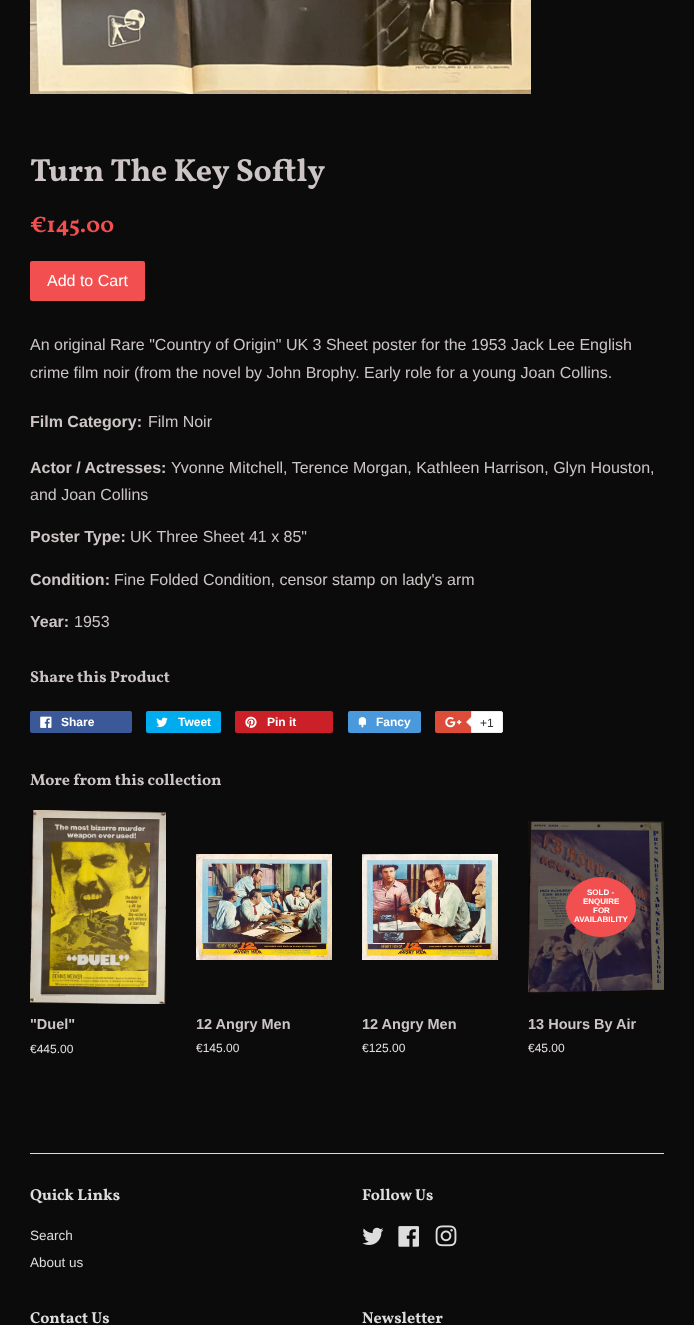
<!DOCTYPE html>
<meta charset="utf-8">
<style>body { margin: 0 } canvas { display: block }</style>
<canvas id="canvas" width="694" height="1325"></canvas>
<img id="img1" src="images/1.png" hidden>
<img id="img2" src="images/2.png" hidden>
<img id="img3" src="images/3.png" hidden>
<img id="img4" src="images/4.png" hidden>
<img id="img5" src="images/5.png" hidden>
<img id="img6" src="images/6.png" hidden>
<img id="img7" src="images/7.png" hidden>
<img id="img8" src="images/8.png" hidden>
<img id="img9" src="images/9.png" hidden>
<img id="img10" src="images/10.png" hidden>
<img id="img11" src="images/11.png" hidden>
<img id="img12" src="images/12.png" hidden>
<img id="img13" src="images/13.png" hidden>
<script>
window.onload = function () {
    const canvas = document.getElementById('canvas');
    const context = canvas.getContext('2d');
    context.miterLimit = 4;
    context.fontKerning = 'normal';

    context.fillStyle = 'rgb(11, 11, 11)';
    context.fillRect(0, 0, 694, 1325);
    context.drawImage(document.getElementById('img1'), 30, 0, 501, 94);
    context.fillStyle = 'rgb(242, 80, 80)';
    context.beginPath();
    context.roundRect(30, 261, 115, 40, 2);
    context.fill();
    context.fillStyle = 'rgb(59, 89, 152)';
    context.beginPath();
    context.roundRect(30, 711, 102, 22, 2);
    context.fill();
    context.drawImage(document.getElementById('img2'), 40, 716, 12, 12);
    context.fillStyle = 'rgb(0, 172, 237)';
    context.beginPath();
    context.roundRect(146, 711, 75, 22, 2);
    context.fill();
    context.drawImage(document.getElementById('img3'), 156, 717, 12, 10);
    context.fillStyle = 'rgb(203, 32, 39)';
    context.beginPath();
    context.roundRect(235, 711, 98, 22, 2);
    context.fill();
    context.drawImage(document.getElementById('img4'), 245, 716, 12, 12);
    context.fillStyle = 'rgb(73, 153, 220)';
    context.beginPath();
    context.roundRect(348, 711, 73, 22, 2);
    context.fill();
    context.drawImage(document.getElementById('img5'), 358, 717, 9, 11);
    context.fillStyle = 'rgb(221, 75, 57)';
    context.beginPath();
    context.roundRect(435, 711, 66, 22, 2);
    context.fill();
    context.drawImage(document.getElementById('img6'), 445, 717, 17, 11);
    context.fillStyle = 'rgb(255, 255, 255)';
    context.beginPath();
    context.roundRect(471.5, 711.5, 31, 21, [0, 1.5, 1.5, 0]);
    context.fill();
    context.strokeStyle = 'rgb(236, 236, 236)';
    context.stroke();
    context.fillStyle = 'rgb(236, 236, 236)';
    context.beginPath();
    context.moveTo(472, 716);
    context.lineTo(472, 728);
    context.lineTo(466, 722);
    context.closePath();
    context.fill();
    context.fillStyle = 'rgb(255, 255, 255)';
    context.beginPath();
    context.moveTo(473, 716);
    context.lineTo(473, 728);
    context.lineTo(467, 722);
    context.closePath();
    context.fill();
    context.drawImage(document.getElementById('img7'), 30, 810, 136, 194);
    context.drawImage(document.getElementById('img8'), 196, 854, 136, 106);
    context.drawImage(document.getElementById('img9'), 362, 854, 136, 106);
    context.drawImage(document.getElementById('img10'), 528, 821, 136, 172);
    context.fillStyle = 'rgb(242, 80, 80)';
    context.beginPath();
    context.ellipse(601, 907, 35, 30, 0, 0, 2 * Math.PI);
    context.fill();
    context.fillStyle = 'rgb(221, 221, 221)';
    context.fillRect(30, 1153, 634, 1);
    context.drawImage(document.getElementById('img11'), 362, 1227, 22, 18);
    context.drawImage(document.getElementById('img12'), 398, 1226, 21, 21);
    context.drawImage(document.getElementById('img13'), 435, 1225, 22, 22);
    context.font = 'bold 32px Vollkorn';
    context.fillStyle = 'rgb(205, 197, 197)';
    context.fillText('Turn The Key Softly', 30, 181);
    context.font = 'bold 22.5px Vollkorn';
    context.fillStyle = 'rgb(242, 80, 80)';
    context.fillText('€145.00', 30, 232);
    context.font = '16px Liberation Sans';
    context.fillStyle = 'rgb(255, 255, 255)';
    context.fillText('Add to Cart', 47, 286);
    context.fillStyle = 'rgb(205, 197, 197)';
    context.fillText('An original Rare "Country of Origin" UK 3 Sheet poster for the 1953 Jack Lee English', 30, 350);
    context.fillText('crime film noir (from the novel by John Brophy. Early role for a young Joan Collins.', 30, 378);
    context.font = 'bold 16px Liberation Sans';
    context.fillText('Film Category:', 30, 427);
    context.font = '16px Liberation Sans';
    context.fillText('Film Noir', 148, 427);
    context.font = 'bold 16px Liberation Sans';
    context.fillText('Actor / Actresses:', 30, 473);
    context.font = '16px Liberation Sans';
    context.fillText('Yvonne Mitchell, Terence Morgan, Kathleen Harrison, Glyn Houston,', 171, 473);
    context.fillText('and Joan Collins', 30, 500);
    context.font = 'bold 16px Liberation Sans';
    context.fillText('Poster Type:', 30, 542);
    context.font = '16px Liberation Sans';
    context.fillText('UK Three Sheet 41 x 85"', 130, 542);
    context.font = 'bold 16px Liberation Sans';
    context.fillText('Condition:', 30, 585);
    context.font = '16px Liberation Sans';
    context.fillText('Fine Folded Condition, censor stamp on lady\'s arm', 114, 585);
    context.font = 'bold 16px Liberation Sans';
    context.fillText('Year:', 30, 627);
    context.font = '16px Liberation Sans';
    context.fillText('1953', 74, 627);
    context.font = 'bold 16px Vollkorn';
    context.fillText('Share this Product', 30, 682);
    context.font = 'bold 12px Liberation Sans';
    context.fillStyle = 'rgb(255, 255, 255)';
    context.fillText('Share', 61, 726);
    context.fillText('Tweet', 178, 726);
    context.fillText('Pin it', 267, 726);
    context.fillText('Fancy', 376, 726);
    context.font = '12px Liberation Sans';
    context.fillStyle = 'rgb(51, 51, 51)';
    context.fillText('+1', 480, 727);
    context.font = 'bold 16px Vollkorn';
    context.fillStyle = 'rgb(205, 197, 197)';
    context.fillText('More from this collection', 30, 785);
    context.font = 'bold 14.5px Liberation Sans';
    context.fillText('"Duel"', 30, 1029);
    context.font = '12px Liberation Sans';
    context.fillStyle = 'rgb(229, 224, 224)';
    context.fillText('€445.00', 30, 1053);
    context.font = 'bold 14.5px Liberation Sans';
    context.fillStyle = 'rgb(205, 197, 197)';
    context.fillText('12 Angry Men', 196, 1029);
    context.font = '12px Liberation Sans';
    context.fillStyle = 'rgb(229, 224, 224)';
    context.fillText('€145.00', 196, 1052);
    context.font = 'bold 14.5px Liberation Sans';
    context.fillStyle = 'rgb(205, 197, 197)';
    context.fillText('12 Angry Men', 362, 1029);
    context.font = '12px Liberation Sans';
    context.fillStyle = 'rgb(229, 224, 224)';
    context.fillText('€125.00', 362, 1052);
    context.font = 'bold 8px Liberation Sans';
    context.fillStyle = 'rgb(255, 255, 255)';
    context.fillText('SOLD -', 587, 895);
    context.fillText('ENQUIRE', 583, 904);
    context.fillText('FOR', 593, 913);
    context.fillText('AVAILABILITY', 574, 922);
    context.font = 'bold 14.5px Liberation Sans';
    context.fillStyle = 'rgb(205, 197, 197)';
    context.fillText('13 Hours By Air', 528, 1029);
    context.font = '12px Liberation Sans';
    context.fillStyle = 'rgb(229, 224, 224)';
    context.fillText('€45.00', 528, 1052);
    context.font = 'bold 16px Vollkorn';
    context.fillStyle = 'rgb(221, 221, 221)';
    context.fillText('Quick Links', 30, 1200);
    context.font = '13.5px Liberation Sans';
    context.fillText('Search', 30, 1240);
    context.fillText('About us', 30, 1267);
    context.font = 'bold 16px Vollkorn';
    context.fillText('Follow Us', 362, 1200);
    context.fillText('Contact Us', 30, 1323);
    context.fillText('Newsletter', 362, 1323);
};
</script>
